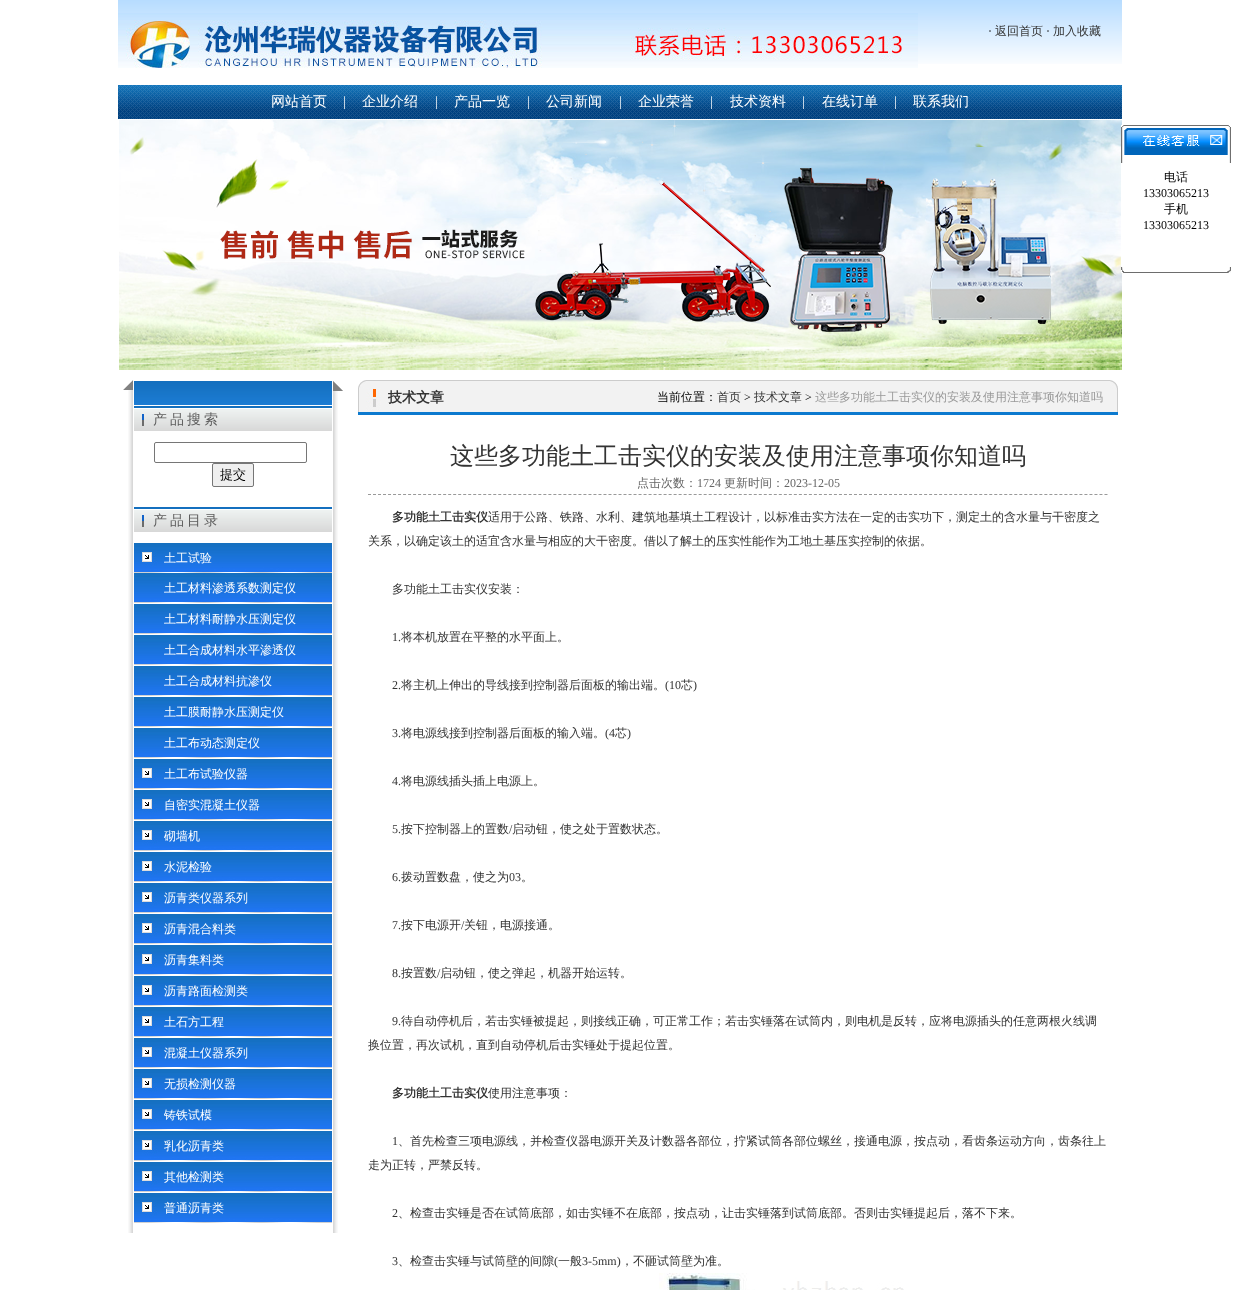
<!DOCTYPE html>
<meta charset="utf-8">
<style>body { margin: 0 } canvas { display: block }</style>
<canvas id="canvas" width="1240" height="1290"></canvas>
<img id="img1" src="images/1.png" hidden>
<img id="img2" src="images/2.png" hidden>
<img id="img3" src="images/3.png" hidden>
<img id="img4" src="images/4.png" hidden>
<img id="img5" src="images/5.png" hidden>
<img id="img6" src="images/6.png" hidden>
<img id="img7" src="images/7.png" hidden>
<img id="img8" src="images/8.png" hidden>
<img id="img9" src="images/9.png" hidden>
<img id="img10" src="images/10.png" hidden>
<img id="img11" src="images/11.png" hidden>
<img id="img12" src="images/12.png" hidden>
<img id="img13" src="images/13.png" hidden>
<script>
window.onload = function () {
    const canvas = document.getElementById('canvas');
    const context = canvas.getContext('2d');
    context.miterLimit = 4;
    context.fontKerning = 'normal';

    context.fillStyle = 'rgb(255, 255, 255)';
    context.fillRect(0, 0, 1240, 1290);
    context.drawImage(document.getElementById('img1'), 118, 0, 1004, 64);
    context.drawImage(document.getElementById('img2'), 118, 13, 800, 55);
    context.drawImage(document.getElementById('img3'), 118, 85, 1004, 34);
    context.drawImage(document.getElementById('img4'), 119, 120, 1003, 250);
    context.drawImage(document.getElementById('img5'), 1121, 125, 110, 38);
    context.fillRect(1121, 163, 1, 104);
    context.drawImage(document.getElementById('img6'), 1121, 267, 110, 6);
    context.drawImage(document.getElementById('img7'), 123, 380, 220, 26);
    context.drawImage(document.getElementById('img8'), 128, 406, 210, 827);
    context.drawImage(document.getElementById('img9'), 134, 406, 198, 25);
    context.beginPath();
    context.roundRect(154.5, 442.5, 152, 20, 1.5);
    context.strokeStyle = 'rgb(118, 118, 118)';
    context.stroke();
    context.fillStyle = 'rgb(239, 239, 239)';
    context.beginPath();
    context.roundRect(212.5, 463.5, 41, 23, 1.5);
    context.fill();
    context.stroke();
    context.drawImage(document.getElementById('img9'), 134, 507, 198, 25);
    context.drawImage(document.getElementById('img10'), 134, 543, 198, 30);
    context.drawImage(document.getElementById('img11'), 134, 573, 198, 30);
    context.drawImage(document.getElementById('img11'), 134, 604, 198, 30);
    context.drawImage(document.getElementById('img11'), 134, 635, 198, 30);
    context.drawImage(document.getElementById('img11'), 134, 666, 198, 30);
    context.drawImage(document.getElementById('img11'), 134, 697, 198, 30);
    context.drawImage(document.getElementById('img11'), 134, 728, 198, 30);
    context.drawImage(document.getElementById('img10'), 134, 759, 198, 30);
    context.drawImage(document.getElementById('img10'), 134, 790, 198, 30);
    context.drawImage(document.getElementById('img10'), 134, 821, 198, 30);
    context.drawImage(document.getElementById('img10'), 134, 852, 198, 30);
    context.drawImage(document.getElementById('img10'), 134, 883, 198, 30);
    context.drawImage(document.getElementById('img10'), 134, 914, 198, 30);
    context.drawImage(document.getElementById('img10'), 134, 945, 198, 30);
    context.drawImage(document.getElementById('img10'), 134, 976, 198, 30);
    context.drawImage(document.getElementById('img10'), 134, 1007, 198, 30);
    context.drawImage(document.getElementById('img10'), 134, 1038, 198, 30);
    context.drawImage(document.getElementById('img10'), 134, 1069, 198, 30);
    context.drawImage(document.getElementById('img10'), 134, 1100, 198, 30);
    context.drawImage(document.getElementById('img10'), 134, 1131, 198, 30);
    context.drawImage(document.getElementById('img10'), 134, 1162, 198, 30);
    context.drawImage(document.getElementById('img10'), 134, 1193, 198, 30);
    context.drawImage(document.getElementById('img12'), 358, 380, 760, 32);
    context.fillStyle = 'rgb(12, 122, 207)';
    context.fillRect(358, 412, 760, 3);
    context.beginPath();
    context.moveTo(368, 494.5);
    context.lineTo(1108, 494.5);
    context.strokeStyle = 'rgb(153, 153, 153)';
    context.setLineDash([3, 2.01]);
    context.stroke();
    context.drawImage(document.getElementById('img13'), 659, 1273, 245, 17);
    context.font = '12px Liberation Serif';
    context.fillStyle = 'rgb(0, 0, 0)';
    context.fillText('·', 988, 35);
    context.font = '500 12px WenQuanYi Zen Hei';
    context.fillStyle = 'rgb(51, 51, 51)';
    context.fillText('返回首页', 995, 35);
    context.font = '12px Liberation Serif';
    context.fillStyle = 'rgb(0, 0, 0)';
    context.fillText('·', 1046, 35);
    context.font = '500 12px WenQuanYi Zen Hei';
    context.fillStyle = 'rgb(51, 51, 51)';
    context.fillText('加入收藏', 1053, 35);
    context.font = '500 14px WenQuanYi Zen Hei';
    context.fillStyle = 'rgb(255, 255, 255)';
    context.fillText('网站首页', 271, 106);
    context.font = '14px Liberation Serif';
    context.fillText('|', 343, 106);
    context.font = '500 14px WenQuanYi Zen Hei';
    context.fillText('企业介绍', 362, 106);
    context.font = '14px Liberation Serif';
    context.fillText('|', 435, 106);
    context.font = '500 14px WenQuanYi Zen Hei';
    context.fillText('产品一览', 454, 106);
    context.font = '14px Liberation Serif';
    context.fillText('|', 527, 106);
    context.font = '500 14px WenQuanYi Zen Hei';
    context.fillText('公司新闻', 546, 106);
    context.font = '14px Liberation Serif';
    context.fillText('|', 619, 106);
    context.font = '500 14px WenQuanYi Zen Hei';
    context.fillText('企业荣誉', 638, 106);
    context.font = '14px Liberation Serif';
    context.fillText('|', 710, 106);
    context.font = '500 14px WenQuanYi Zen Hei';
    context.fillText('技术资料', 730, 106);
    context.font = '14px Liberation Serif';
    context.fillText('|', 802, 106);
    context.font = '500 14px WenQuanYi Zen Hei';
    context.fillText('在线订单', 822, 106);
    context.font = '14px Liberation Serif';
    context.fillText('|', 894, 106);
    context.font = '500 14px WenQuanYi Zen Hei';
    context.fillText('联系我们', 913, 106);
    context.font = '500 12px WenQuanYi Zen Hei';
    context.fillStyle = 'rgb(0, 0, 0)';
    context.fillText('电话', 1164, 181);
    context.font = '12px Liberation Serif';
    context.fillText('13303065213', 1143, 197);
    context.font = '500 12px WenQuanYi Zen Hei';
    context.fillText('手机', 1164, 213);
    context.font = '12px Liberation Serif';
    context.fillText('13303065213', 1143, 229);
    context.letterSpacing = '3px';
    context.font = '500 14px WenQuanYi Zen Hei';
    context.fillStyle = 'rgb(93, 93, 93)';
    context.fillText('产品搜索', 153, 424);
    context.letterSpacing = '0px';
    context.font = '500 13px WenQuanYi Zen Hei';
    context.fillStyle = 'rgb(0, 0, 0)';
    context.fillText('提交', 220, 479);
    context.letterSpacing = '3px';
    context.font = '500 14px WenQuanYi Zen Hei';
    context.fillStyle = 'rgb(93, 93, 93)';
    context.fillText('产品目录', 153, 525);
    context.letterSpacing = '0px';
    context.font = '500 12px WenQuanYi Zen Hei';
    context.fillStyle = 'rgb(255, 255, 255)';
    context.fillText('土工试验', 164, 562);
    context.fillText('土工材料渗透系数测定仪', 164, 592);
    context.fillText('土工材料耐静水压测定仪', 164, 623);
    context.fillText('土工合成材料水平渗透仪', 164, 654);
    context.fillText('土工合成材料抗渗仪', 164, 685);
    context.fillText('土工膜耐静水压测定仪', 164, 716);
    context.fillText('土工布动态测定仪', 164, 747);
    context.fillText('土工布试验仪器', 164, 778);
    context.fillText('自密实混凝土仪器', 164, 809);
    context.fillText('砌墙机', 164, 840);
    context.fillText('水泥检验', 164, 871);
    context.fillText('沥青类仪器系列', 164, 902);
    context.fillText('沥青混合料类', 164, 933);
    context.fillText('沥青集料类', 164, 964);
    context.fillText('沥青路面检测类', 164, 995);
    context.fillText('土石方工程', 164, 1026);
    context.fillText('混凝土仪器系列', 164, 1057);
    context.fillText('无损检测仪器', 164, 1088);
    context.fillText('铸铁试模', 164, 1119);
    context.fillText('乳化沥青类', 164, 1150);
    context.fillText('其他检测类', 164, 1181);
    context.fillText('普通沥青类', 164, 1212);
    context.font = 'bold 14px WenQuanYi Zen Hei';
    context.fillStyle = 'rgb(51, 51, 51)';
    context.fillText('技术文章', 388, 402);
    context.font = '500 12px WenQuanYi Zen Hei';
    context.fillStyle = 'rgb(0, 0, 0)';
    context.fillText('当前位置：', 657, 401);
    context.fillStyle = 'rgb(51, 51, 51)';
    context.fillText('首页', 717, 401);
    context.font = '12px Liberation Serif';
    context.fillStyle = 'rgb(0, 0, 0)';
    context.fillText('>', 744, 401);
    context.font = '500 12px WenQuanYi Zen Hei';
    context.fillStyle = 'rgb(51, 51, 51)';
    context.fillText('技术文章', 754, 401);
    context.font = '12px Liberation Serif';
    context.fillStyle = 'rgb(0, 0, 0)';
    context.fillText('>', 805, 401);
    context.font = '500 12px WenQuanYi Zen Hei';
    context.fillStyle = 'rgb(153, 153, 153)';
    context.fillText('这些多功能土工击实仪的安装及使用注意事项你知道吗', 815, 401);
    context.font = '500 24px WenQuanYi Zen Hei';
    context.fillStyle = 'rgb(51, 51, 51)';
    context.fillText('这些多功能土工击实仪的安装及使用注意事项你知道吗', 450, 464);
    context.font = '500 12px WenQuanYi Zen Hei';
    context.fillStyle = 'rgb(102, 102, 102)';
    context.fillText('点击次数：', 637, 487);
    context.font = '12px Liberation Serif';
    context.fillText('1724', 697, 487);
    context.font = '500 12px WenQuanYi Zen Hei';
    context.fillText('更新时间：', 724, 487);
    context.font = '12px Liberation Serif';
    context.fillText('2023-12-05', 784, 487);
    context.font = 'bold 12px WenQuanYi Zen Hei';
    context.fillStyle = 'rgb(51, 51, 51)';
    context.fillText('多功能土工击实仪', 392, 521);
    context.font = '500 12px WenQuanYi Zen Hei';
    context.fillText('适用于公路、铁路、水利、建筑地基填土工程设计，以标准击实方法在一定的击实功下，测定土的含水量与干密度之', 488, 521);
    context.fillText('关系，以确定该土的适宜含水量与相应的大干密度。借以了解土的压实性能作为工地土基压实控制的依据。', 368, 545);
    context.fillText('多功能土工击实仪安装：', 392, 593);
    context.font = '12px Liberation Serif';
    context.fillText('1.', 392, 641);
    context.font = '500 12px WenQuanYi Zen Hei';
    context.fillText('将本机放置在平整的水平面上。', 401, 641);
    context.font = '12px Liberation Serif';
    context.fillText('2.', 392, 689);
    context.font = '500 12px WenQuanYi Zen Hei';
    context.fillText('将主机上伸出的导线接到控制器后面板的输出端。', 401, 689);
    context.font = '12px Liberation Serif';
    context.fillText('(10', 665, 689);
    context.font = '500 12px WenQuanYi Zen Hei';
    context.fillText('芯', 681, 689);
    context.font = '12px Liberation Serif';
    context.fillText(')', 693, 689);
    context.fillText('3.', 392, 737);
    context.font = '500 12px WenQuanYi Zen Hei';
    context.fillText('将电源线接到控制器后面板的输入端。', 401, 737);
    context.font = '12px Liberation Serif';
    context.fillText('(4', 605, 737);
    context.font = '500 12px WenQuanYi Zen Hei';
    context.fillText('芯', 615, 737);
    context.font = '12px Liberation Serif';
    context.fillText(')', 627, 737);
    context.fillText('4.', 392, 785);
    context.font = '500 12px WenQuanYi Zen Hei';
    context.fillText('将电源线插头插上电源上。', 401, 785);
    context.font = '12px Liberation Serif';
    context.fillText('5.', 392, 833);
    context.font = '500 12px WenQuanYi Zen Hei';
    context.fillText('按下控制器上的置数', 401, 833);
    context.font = '12px Liberation Serif';
    context.fillText('/', 509, 833);
    context.font = '500 12px WenQuanYi Zen Hei';
    context.fillText('启动钮，使之处于置数状态。', 512, 833);
    context.font = '12px Liberation Serif';
    context.fillText('6.', 392, 881);
    context.font = '500 12px WenQuanYi Zen Hei';
    context.fillText('拨动置数盘，使之为', 401, 881);
    context.font = '12px Liberation Serif';
    context.fillText('03', 509, 881);
    context.font = '500 12px WenQuanYi Zen Hei';
    context.fillText('。', 521, 881);
    context.font = '12px Liberation Serif';
    context.fillText('7.', 392, 929);
    context.font = '500 12px WenQuanYi Zen Hei';
    context.fillText('按下电源开', 401, 929);
    context.font = '12px Liberation Serif';
    context.fillText('/', 461, 929);
    context.font = '500 12px WenQuanYi Zen Hei';
    context.fillText('关钮，电源接通。', 464, 929);
    context.font = '12px Liberation Serif';
    context.fillText('8.', 392, 977);
    context.font = '500 12px WenQuanYi Zen Hei';
    context.fillText('按置数', 401, 977);
    context.font = '12px Liberation Serif';
    context.fillText('/', 437, 977);
    context.font = '500 12px WenQuanYi Zen Hei';
    context.fillText('启动钮，使之弹起，机器开始运转。', 440, 977);
    context.font = '12px Liberation Serif';
    context.fillText('9.', 392, 1025);
    context.font = '500 12px WenQuanYi Zen Hei';
    context.fillText('待自动停机后，若击实锤被提起，则接线正确，可正常工作；若击实锤落在试筒内，则电机是反转，应将电源插头的任意两根火线调', 401, 1025);
    context.fillText('换位置，再次试机，直到自动停机后击实锤处于提起位置。', 368, 1049);
    context.font = 'bold 12px WenQuanYi Zen Hei';
    context.fillText('多功能土工击实仪', 392, 1097);
    context.font = '500 12px WenQuanYi Zen Hei';
    context.fillText('使用注意事项：', 488, 1097);
    context.font = '12px Liberation Serif';
    context.fillText('1', 392, 1145);
    context.font = '500 12px WenQuanYi Zen Hei';
    context.fillText('、首先检查三项电源线，并检查仪器电源开关及计数器各部位，拧紧试筒各部位螺丝，接通电源，按点动，看齿条运动方向，齿条往上', 398, 1145);
    context.fillText('走为正转，严禁反转。', 368, 1169);
    context.font = '12px Liberation Serif';
    context.fillText('2', 392, 1217);
    context.font = '500 12px WenQuanYi Zen Hei';
    context.fillText('、检查击实锤是否在试筒底部，如击实锤不在底部，按点动，让击实锤落到试筒底部。否则击实锤提起后，落不下来。', 398, 1217);
    context.font = '12px Liberation Serif';
    context.fillText('3', 392, 1265);
    context.font = '500 12px WenQuanYi Zen Hei';
    context.fillText('、检查击实锤与试筒壁的间隙', 398, 1265);
    context.font = '12px Liberation Serif';
    context.fillText('(', 554, 1265);
    context.font = '500 12px WenQuanYi Zen Hei';
    context.fillText('一般', 558, 1265);
    context.font = '12px Liberation Serif';
    context.fillText('3-5mm)', 582, 1265);
    context.font = '500 12px WenQuanYi Zen Hei';
    context.fillText('，不砸试筒壁为准。', 621, 1265);
};
</script>
